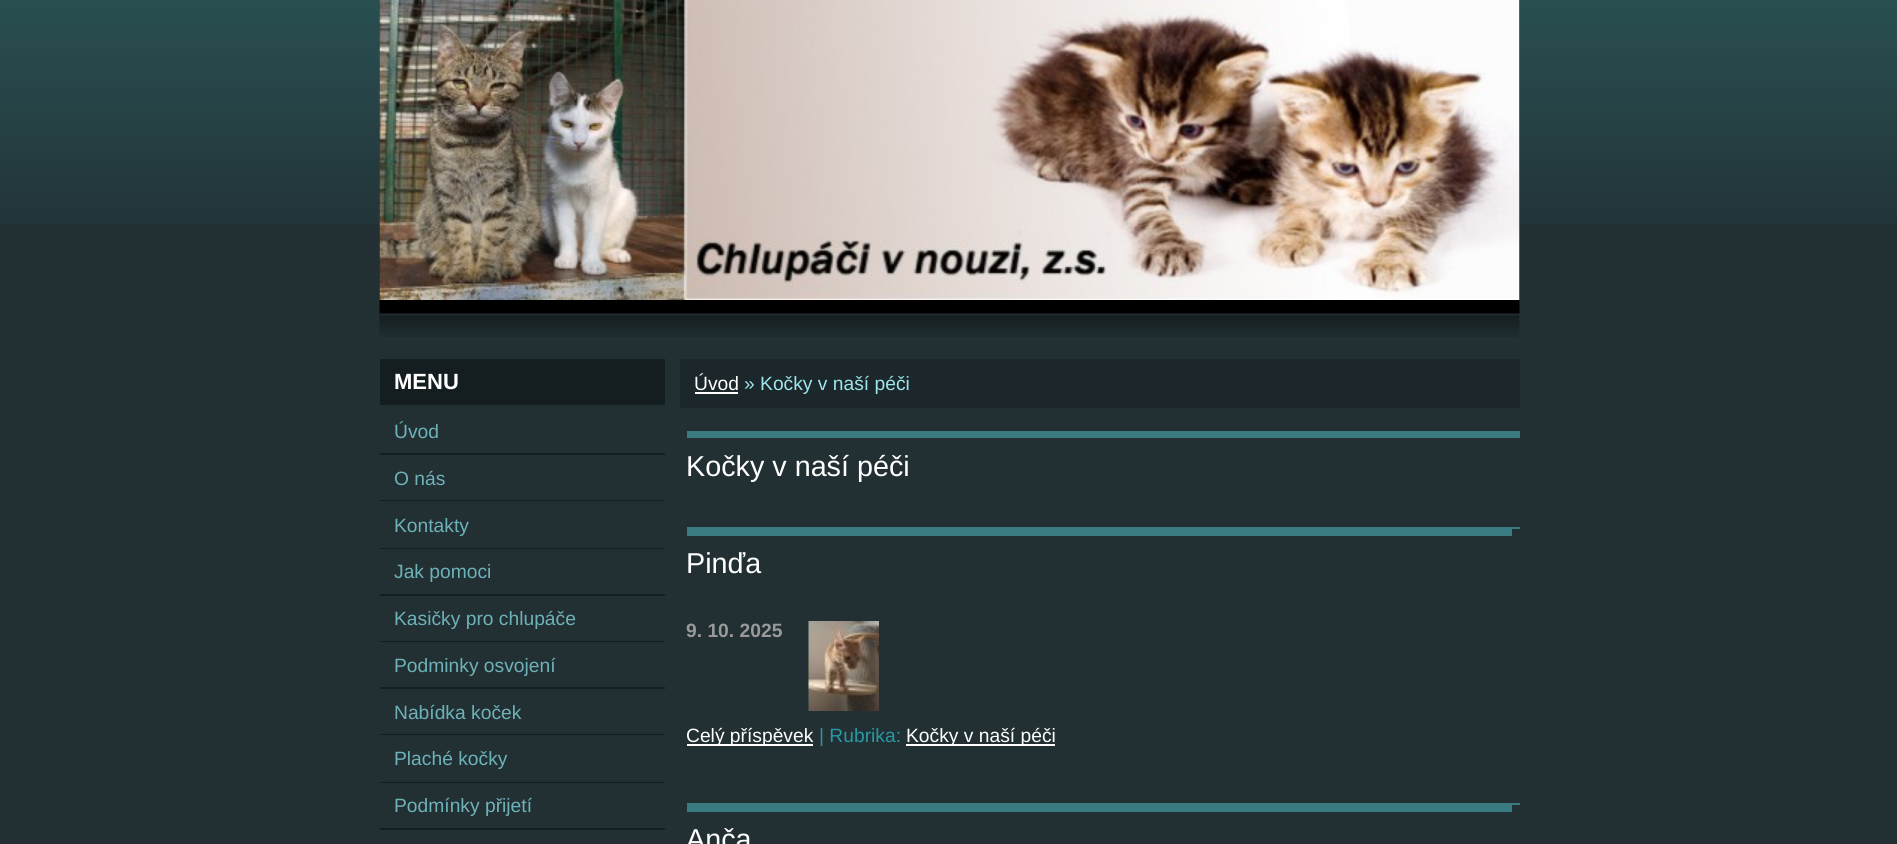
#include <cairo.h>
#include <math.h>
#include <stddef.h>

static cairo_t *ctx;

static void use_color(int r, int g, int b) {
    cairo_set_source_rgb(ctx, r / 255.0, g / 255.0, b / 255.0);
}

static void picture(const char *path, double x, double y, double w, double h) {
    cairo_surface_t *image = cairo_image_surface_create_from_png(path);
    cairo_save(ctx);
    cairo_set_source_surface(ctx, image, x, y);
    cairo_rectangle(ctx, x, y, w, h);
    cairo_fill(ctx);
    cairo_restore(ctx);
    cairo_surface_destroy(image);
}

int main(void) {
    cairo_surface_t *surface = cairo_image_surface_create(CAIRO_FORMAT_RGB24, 1897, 844);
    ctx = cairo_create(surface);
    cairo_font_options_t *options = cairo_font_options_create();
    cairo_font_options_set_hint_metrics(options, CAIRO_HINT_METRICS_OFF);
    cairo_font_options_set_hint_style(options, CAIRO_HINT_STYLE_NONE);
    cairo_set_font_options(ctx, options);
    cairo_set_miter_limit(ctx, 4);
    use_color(34, 48, 52);
    cairo_paint(ctx);
    picture("img1.png", 0, 0, 1897, 224);
    picture("img2.png", 379, 300, 1141, 37);
    use_color(34, 48, 52);
    cairo_rectangle(ctx, 1519, 0, 1, 224);
    cairo_fill(ctx);
    picture("img3.png", 379, 0, 1141, 300);
    use_color(20, 30, 33);
    cairo_rectangle(ctx, 380, 359, 285, 46);
    cairo_fill(ctx);
    cairo_select_font_face(ctx, "Liberation Sans", CAIRO_FONT_SLANT_NORMAL, CAIRO_FONT_WEIGHT_BOLD);
    cairo_set_font_size(ctx, 22);
    use_color(255, 255, 255);
    cairo_move_to(ctx, 394, 389);
    cairo_show_text(ctx, "MENU");
    use_color(20, 30, 33);
    cairo_rectangle(ctx, 380, 453, 285, 2);
    cairo_fill(ctx);
    cairo_select_font_face(ctx, "Liberation Sans", CAIRO_FONT_SLANT_NORMAL, CAIRO_FONT_WEIGHT_NORMAL);
    cairo_set_font_size(ctx, 19.25);
    use_color(109, 178, 184);
    cairo_move_to(ctx, 394, 438);
    cairo_show_text(ctx, "Úvod");
    use_color(20, 30, 33);
    cairo_rectangle(ctx, 380, 500, 285, 1);
    cairo_fill(ctx);
    use_color(109, 178, 184);
    cairo_move_to(ctx, 394, 485);
    cairo_show_text(ctx, "O nás");
    use_color(20, 30, 33);
    cairo_rectangle(ctx, 380, 548, 285, 1);
    cairo_fill(ctx);
    use_color(109, 178, 184);
    cairo_move_to(ctx, 394, 532);
    cairo_show_text(ctx, "Kontakty");
    use_color(20, 30, 33);
    cairo_rectangle(ctx, 380, 594, 285, 2);
    cairo_fill(ctx);
    use_color(109, 178, 184);
    cairo_move_to(ctx, 394, 578);
    cairo_show_text(ctx, "Jak pomoci");
    use_color(20, 30, 33);
    cairo_rectangle(ctx, 380, 641, 285, 1);
    cairo_fill(ctx);
    use_color(109, 178, 184);
    cairo_move_to(ctx, 394, 625);
    cairo_show_text(ctx, "Kasičky pro chlupáče");
    use_color(20, 30, 33);
    cairo_rectangle(ctx, 380, 687, 285, 2);
    cairo_fill(ctx);
    use_color(109, 178, 184);
    cairo_move_to(ctx, 394, 672);
    cairo_show_text(ctx, "Podminky osvojení");
    use_color(20, 30, 33);
    cairo_rectangle(ctx, 380, 734, 285, 1);
    cairo_fill(ctx);
    use_color(109, 178, 184);
    cairo_move_to(ctx, 394, 719);
    cairo_show_text(ctx, "Nabídka koček");
    use_color(20, 30, 33);
    cairo_rectangle(ctx, 380, 782, 285, 1);
    cairo_fill(ctx);
    use_color(109, 178, 184);
    cairo_move_to(ctx, 394, 765);
    cairo_show_text(ctx, "Plaché kočky");
    use_color(20, 30, 33);
    cairo_rectangle(ctx, 380, 828, 285, 2);
    cairo_fill(ctx);
    use_color(109, 178, 184);
    cairo_move_to(ctx, 394, 812);
    cairo_show_text(ctx, "Podmínky přijetí");
    use_color(27, 39, 42);
    cairo_rectangle(ctx, 680, 359, 840, 49);
    cairo_fill(ctx);
    use_color(255, 255, 255);
    cairo_move_to(ctx, 694, 390);
    cairo_show_text(ctx, "Úvod");
    cairo_rectangle(ctx, 695, 392, 43, 2);
    cairo_fill(ctx);
    use_color(158, 229, 235);
    cairo_move_to(ctx, 744, 390);
    cairo_show_text(ctx, "» Kočky v naší péči");
    use_color(57, 123, 129);
    cairo_rectangle(ctx, 687, 431, 833, 7);
    cairo_fill(ctx);
    cairo_set_font_size(ctx, 28.75);
    use_color(255, 255, 255);
    cairo_move_to(ctx, 686, 476);
    cairo_show_text(ctx, "Kočky v naší péči");
    use_color(57, 123, 129);
    cairo_rectangle(ctx, 687, 527, 833, 2);
    cairo_fill(ctx);
    cairo_rectangle(ctx, 687, 529, 825, 7);
    cairo_fill(ctx);
    use_color(255, 255, 255);
    cairo_move_to(ctx, 686, 573);
    cairo_show_text(ctx, "Pinďa");
    cairo_select_font_face(ctx, "Liberation Sans", CAIRO_FONT_SLANT_NORMAL, CAIRO_FONT_WEIGHT_BOLD);
    cairo_set_font_size(ctx, 19.25);
    use_color(153, 153, 153);
    cairo_move_to(ctx, 686, 637);
    cairo_show_text(ctx, "9. 10. 2025");
    picture("img4.png", 808, 621, 71, 90);
    use_color(255, 255, 255);
    cairo_rectangle(ctx, 687, 744, 126, 2);
    cairo_fill(ctx);
    cairo_select_font_face(ctx, "Liberation Sans", CAIRO_FONT_SLANT_NORMAL, CAIRO_FONT_WEIGHT_NORMAL);
    cairo_move_to(ctx, 686, 742);
    cairo_show_text(ctx, "Celý příspěvek");
    use_color(39, 152, 162);
    cairo_move_to(ctx, 819, 742);
    cairo_show_text(ctx, "| Rubrika:");
    use_color(255, 255, 255);
    cairo_rectangle(ctx, 906, 744, 149, 2);
    cairo_fill(ctx);
    cairo_move_to(ctx, 906, 742);
    cairo_show_text(ctx, "Kočky v naší péči");
    use_color(57, 123, 129);
    cairo_rectangle(ctx, 687, 803, 833, 2);
    cairo_fill(ctx);
    cairo_rectangle(ctx, 687, 805, 825, 7);
    cairo_fill(ctx);
    cairo_set_font_size(ctx, 28.75);
    use_color(255, 255, 255);
    cairo_move_to(ctx, 686, 849);
    cairo_show_text(ctx, "Anča");
    cairo_surface_write_to_png(surface, "result.png");
    cairo_font_options_destroy(options);
    cairo_destroy(ctx);
    cairo_surface_destroy(surface);
    return 0;
}
